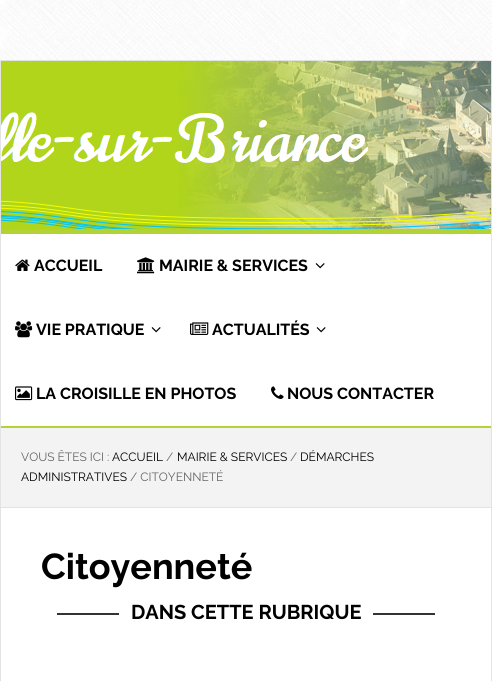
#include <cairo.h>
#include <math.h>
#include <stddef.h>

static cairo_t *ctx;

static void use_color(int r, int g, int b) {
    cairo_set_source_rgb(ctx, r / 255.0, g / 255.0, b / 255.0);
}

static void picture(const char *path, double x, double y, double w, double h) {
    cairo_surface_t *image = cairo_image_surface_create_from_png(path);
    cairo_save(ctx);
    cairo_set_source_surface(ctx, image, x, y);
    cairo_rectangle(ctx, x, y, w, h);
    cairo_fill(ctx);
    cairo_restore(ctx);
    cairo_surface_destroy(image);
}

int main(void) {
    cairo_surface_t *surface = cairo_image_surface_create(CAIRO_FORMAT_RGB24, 492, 681);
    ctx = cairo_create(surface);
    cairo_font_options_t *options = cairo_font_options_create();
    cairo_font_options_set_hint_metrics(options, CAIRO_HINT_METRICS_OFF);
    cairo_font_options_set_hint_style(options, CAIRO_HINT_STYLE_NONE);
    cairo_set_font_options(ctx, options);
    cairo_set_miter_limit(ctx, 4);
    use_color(255, 255, 255);
    cairo_paint(ctx);
    picture("img1.png", 0, 0, 492, 60);
    cairo_rectangle(ctx, 0.5, 60.5, 491, 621);
    use_color(227, 227, 227);
    cairo_set_line_width(ctx, 1);
    cairo_stroke(ctx);
    use_color(179, 210, 53);
    cairo_rectangle(ctx, 1, 229, 490, 5);
    cairo_fill(ctx);
    picture("img2.png", 1, 61, 490, 168);
    cairo_rectangle(ctx, 1, 426, 490, 2);
    cairo_fill(ctx);
    picture("img3.png", 15, 259, 15, 12);
    cairo_select_font_face(ctx, "Raleway", CAIRO_FONT_SLANT_NORMAL, CAIRO_FONT_WEIGHT_BOLD);
    cairo_set_font_size(ctx, 16);
    use_color(0, 0, 0);
    cairo_move_to(ctx, 34, 271);
    cairo_show_text(ctx, "ACCUEIL");
    picture("img4.png", 137, 257, 18, 17);
    cairo_move_to(ctx, 159, 271);
    cairo_show_text(ctx, "MAIRIE & SERVICES");
    picture("img5.png", 315, 263, 10, 6);
    picture("img6.png", 15, 321, 18, 17);
    cairo_move_to(ctx, 36, 335);
    cairo_show_text(ctx, "VIE PRATIQUE");
    picture("img5.png", 151, 327, 10, 6);
    picture("img7.png", 190, 322, 19, 13);
    cairo_move_to(ctx, 212, 335);
    cairo_show_text(ctx, "ACTUALITÉS");
    picture("img5.png", 316, 327, 10, 6);
    picture("img8.png", 15, 386, 18, 15);
    cairo_move_to(ctx, 36, 399);
    cairo_show_text(ctx, "LA CROISILLE EN PHOTOS");
    picture("img9.png", 271, 386, 13, 13);
    cairo_move_to(ctx, 287, 399);
    cairo_show_text(ctx, "NOUS CONTACTER");
    use_color(243, 243, 243);
    cairo_rectangle(ctx, 1, 428, 490, 79);
    cairo_fill(ctx);
    use_color(227, 227, 227);
    cairo_rectangle(ctx, 1, 507, 490, 1);
    cairo_fill(ctx);
    cairo_select_font_face(ctx, "Raleway", CAIRO_FONT_SLANT_NORMAL, CAIRO_FONT_WEIGHT_NORMAL);
    cairo_set_font_size(ctx, 12);
    use_color(102, 102, 102);
    cairo_move_to(ctx, 21, 461);
    cairo_show_text(ctx, "VOUS ÊTES ICI :");
    use_color(0, 0, 0);
    cairo_move_to(ctx, 112, 461);
    cairo_show_text(ctx, "ACCUEIL");
    use_color(102, 102, 102);
    cairo_move_to(ctx, 166, 461);
    cairo_show_text(ctx, "/");
    use_color(0, 0, 0);
    cairo_move_to(ctx, 177, 461);
    cairo_show_text(ctx, "MAIRIE & SERVICES");
    use_color(102, 102, 102);
    cairo_move_to(ctx, 290, 461);
    cairo_show_text(ctx, "/");
    use_color(0, 0, 0);
    cairo_move_to(ctx, 300, 461);
    cairo_show_text(ctx, "DÉMARCHES");
    cairo_move_to(ctx, 21, 481);
    cairo_show_text(ctx, "ADMINISTRATIVES");
    use_color(102, 102, 102);
    cairo_move_to(ctx, 130, 481);
    cairo_show_text(ctx, "/ CITOYENNETÉ");
    cairo_select_font_face(ctx, "Raleway", CAIRO_FONT_SLANT_NORMAL, CAIRO_FONT_WEIGHT_BOLD);
    cairo_set_font_size(ctx, 36);
    use_color(0, 0, 0);
    cairo_move_to(ctx, 41, 579);
    cairo_show_text(ctx, "Citoyenneté");
    use_color(51, 51, 51);
    cairo_rectangle(ctx, 57, 613, 62, 2);
    cairo_fill(ctx);
    cairo_set_font_size(ctx, 20);
    use_color(0, 0, 0);
    cairo_move_to(ctx, 131, 619);
    cairo_show_text(ctx, "DANS CETTE RUBRIQUE");
    use_color(51, 51, 51);
    cairo_rectangle(ctx, 373, 613, 62, 2);
    cairo_fill(ctx);
    cairo_surface_write_to_png(surface, "result.png");
    cairo_font_options_destroy(options);
    cairo_destroy(ctx);
    cairo_surface_destroy(surface);
    return 0;
}
